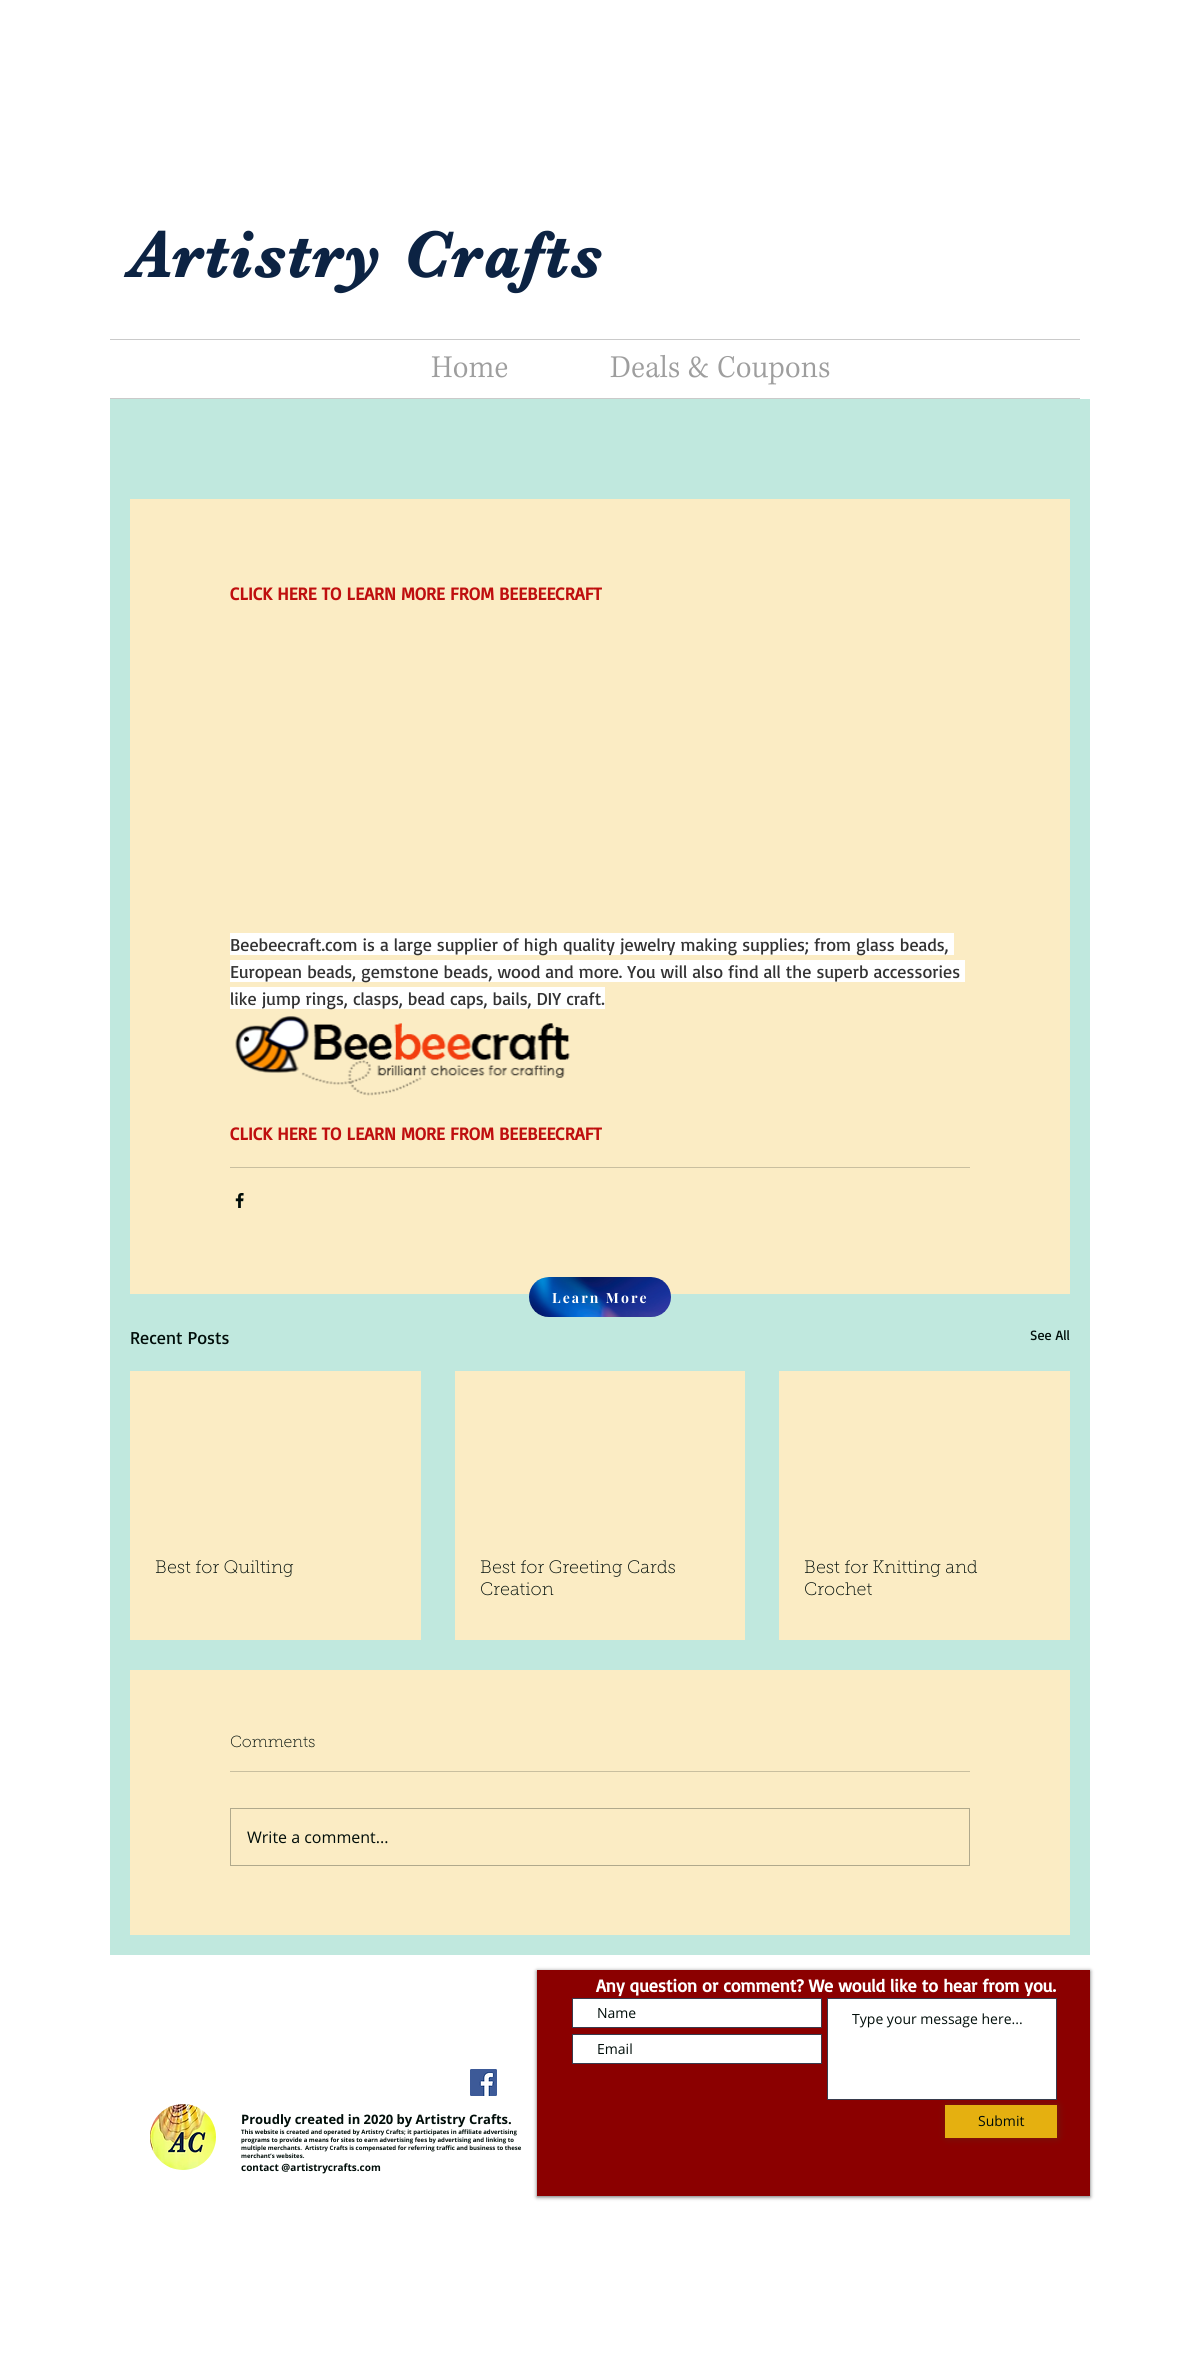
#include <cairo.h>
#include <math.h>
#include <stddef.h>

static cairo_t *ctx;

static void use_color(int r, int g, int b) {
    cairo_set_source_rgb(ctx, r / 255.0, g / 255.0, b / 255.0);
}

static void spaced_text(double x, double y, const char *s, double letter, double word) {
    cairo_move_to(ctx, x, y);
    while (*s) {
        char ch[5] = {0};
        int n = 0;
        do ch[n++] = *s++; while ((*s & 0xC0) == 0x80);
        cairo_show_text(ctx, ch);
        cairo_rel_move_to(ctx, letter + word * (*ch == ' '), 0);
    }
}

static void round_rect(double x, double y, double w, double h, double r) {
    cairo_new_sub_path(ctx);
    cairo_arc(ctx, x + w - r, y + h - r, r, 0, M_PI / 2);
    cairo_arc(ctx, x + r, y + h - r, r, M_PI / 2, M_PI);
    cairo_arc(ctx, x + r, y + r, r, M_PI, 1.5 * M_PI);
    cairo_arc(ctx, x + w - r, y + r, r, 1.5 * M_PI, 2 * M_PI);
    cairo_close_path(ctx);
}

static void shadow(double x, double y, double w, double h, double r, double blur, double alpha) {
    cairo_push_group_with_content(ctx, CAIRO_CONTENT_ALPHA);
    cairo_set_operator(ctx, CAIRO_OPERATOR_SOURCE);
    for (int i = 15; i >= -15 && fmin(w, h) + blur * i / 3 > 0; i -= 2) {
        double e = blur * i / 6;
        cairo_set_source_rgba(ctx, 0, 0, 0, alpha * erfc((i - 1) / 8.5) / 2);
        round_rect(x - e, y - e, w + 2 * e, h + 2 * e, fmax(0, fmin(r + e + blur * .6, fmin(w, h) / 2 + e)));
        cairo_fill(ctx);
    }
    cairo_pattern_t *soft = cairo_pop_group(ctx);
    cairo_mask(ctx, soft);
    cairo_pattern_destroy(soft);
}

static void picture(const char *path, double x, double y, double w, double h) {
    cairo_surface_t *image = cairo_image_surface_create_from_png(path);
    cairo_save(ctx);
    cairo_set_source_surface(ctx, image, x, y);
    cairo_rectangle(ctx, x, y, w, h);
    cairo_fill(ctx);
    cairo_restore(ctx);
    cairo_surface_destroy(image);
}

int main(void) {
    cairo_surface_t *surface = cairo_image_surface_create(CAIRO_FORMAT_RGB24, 1200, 2372);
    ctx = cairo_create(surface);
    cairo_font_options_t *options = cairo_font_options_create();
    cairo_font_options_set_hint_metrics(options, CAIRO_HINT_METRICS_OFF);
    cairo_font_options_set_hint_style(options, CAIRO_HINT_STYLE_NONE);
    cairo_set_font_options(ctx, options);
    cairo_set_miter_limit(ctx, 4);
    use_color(255, 255, 255);
    cairo_paint(ctx);
    cairo_select_font_face(ctx, "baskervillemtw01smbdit", CAIRO_FONT_SLANT_NORMAL, CAIRO_FONT_WEIGHT_BOLD);
    cairo_set_font_size(ctx, 66);
    use_color(12, 35, 67);
    spaced_text(129, 277, "Artistry Crafts", 3.25, 0);
    use_color(202, 202, 202);
    cairo_rectangle(ctx, 110, 339, 970, 1);
    cairo_fill(ctx);
    cairo_rectangle(ctx, 110, 398, 970, 1);
    cairo_fill(ctx);
    picture("img1.png", 431, 356, 77, 22);
    picture("img2.png", 610, 354, 220, 31);
    use_color(192, 232, 222);
    cairo_rectangle(ctx, 110, 399, 980, 1556);
    cairo_fill(ctx);
    use_color(251, 236, 196);
    cairo_rectangle(ctx, 130, 499, 940, 795);
    cairo_fill(ctx);
    cairo_select_font_face(ctx, "Basic", CAIRO_FONT_SLANT_NORMAL, CAIRO_FONT_WEIGHT_BOLD);
    cairo_set_font_size(ctx, 18);
    use_color(191, 15, 15);
    cairo_move_to(ctx, 230, 600);
    cairo_show_text(ctx, "CLICK HERE TO LEARN MORE FROM BEEBEECRAFT");
    use_color(255, 255, 255);
    cairo_rectangle(ctx, 230, 933, 724, 22);
    cairo_fill(ctx);
    cairo_select_font_face(ctx, "Basic", CAIRO_FONT_SLANT_NORMAL, CAIRO_FONT_WEIGHT_NORMAL);
    use_color(51, 51, 51);
    cairo_move_to(ctx, 230, 951);
    cairo_show_text(ctx, "Beebeecraft.com is a large supplier of high quality jewelry making supplies; from glass beads,");
    use_color(255, 255, 255);
    cairo_rectangle(ctx, 230, 960, 735, 22);
    cairo_fill(ctx);
    use_color(51, 51, 51);
    cairo_move_to(ctx, 230, 978);
    cairo_show_text(ctx, "European beads, gemstone beads, wood and more. You will also find all the superb accessories");
    use_color(255, 255, 255);
    cairo_rectangle(ctx, 230, 987, 375, 22);
    cairo_fill(ctx);
    use_color(51, 51, 51);
    cairo_move_to(ctx, 230, 1005);
    cairo_show_text(ctx, "like jump rings, clasps, bead caps, bails, DIY craft.");
    picture("img3.png", 235, 1016, 335, 80);
    cairo_select_font_face(ctx, "Basic", CAIRO_FONT_SLANT_NORMAL, CAIRO_FONT_WEIGHT_BOLD);
    use_color(191, 15, 15);
    cairo_move_to(ctx, 230, 1140);
    cairo_show_text(ctx, "CLICK HERE TO LEARN MORE FROM BEEBEECRAFT");
    use_color(201, 191, 159);
    cairo_rectangle(ctx, 230, 1167, 740, 1);
    cairo_fill(ctx);
    picture("img4.png", 235, 1193, 9, 15);
    cairo_select_font_face(ctx, "Basic", CAIRO_FONT_SLANT_NORMAL, CAIRO_FONT_WEIGHT_NORMAL);
    use_color(0, 13, 9);
    cairo_move_to(ctx, 130, 1344);
    cairo_show_text(ctx, "Recent Posts");
    cairo_set_font_size(ctx, 14);
    cairo_move_to(ctx, 1030, 1340);
    cairo_show_text(ctx, "See All");
    use_color(251, 236, 196);
    cairo_rectangle(ctx, 130, 1371, 291, 269);
    cairo_fill(ctx);
    cairo_select_font_face(ctx, "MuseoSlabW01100 Thin", CAIRO_FONT_SLANT_NORMAL, CAIRO_FONT_WEIGHT_NORMAL);
    cairo_set_font_size(ctx, 18);
    use_color(0, 13, 9);
    cairo_move_to(ctx, 155, 1573);
    cairo_show_text(ctx, "Best for Quilting");
    use_color(251, 236, 196);
    cairo_rectangle(ctx, 455, 1371, 290, 269);
    cairo_fill(ctx);
    use_color(0, 13, 9);
    cairo_move_to(ctx, 480, 1573);
    cairo_show_text(ctx, "Best for Greeting Cards");
    cairo_move_to(ctx, 480, 1595);
    cairo_show_text(ctx, "Creation");
    use_color(251, 236, 196);
    cairo_rectangle(ctx, 779, 1371, 291, 269);
    cairo_fill(ctx);
    use_color(0, 13, 9);
    cairo_move_to(ctx, 804, 1573);
    cairo_show_text(ctx, "Best for Knitting and");
    cairo_move_to(ctx, 804, 1595);
    cairo_show_text(ctx, "Crochet");
    use_color(251, 236, 196);
    cairo_rectangle(ctx, 130, 1670, 940, 265);
    cairo_fill(ctx);
    cairo_set_font_size(ctx, 16);
    use_color(0, 13, 9);
    cairo_move_to(ctx, 230, 1747);
    cairo_show_text(ctx, "Comments");
    use_color(201, 191, 159);
    cairo_rectangle(ctx, 230, 1771, 740, 1);
    cairo_fill(ctx);
    cairo_rectangle(ctx, 230.5, 1808.5, 739, 57);
    use_color(176, 169, 140);
    cairo_set_line_width(ctx, 1);
    cairo_stroke(ctx);
    cairo_select_font_face(ctx, "Open Sans", CAIRO_FONT_SLANT_NORMAL, CAIRO_FONT_WEIGHT_NORMAL);
    use_color(0, 13, 9);
    cairo_move_to(ctx, 247, 1843);
    cairo_show_text(ctx, "Write a comment...");
    picture("img5.png", 529, 1277, 142, 40);
    cairo_select_font_face(ctx, "Playfair Display", CAIRO_FONT_SLANT_NORMAL, CAIRO_FONT_WEIGHT_BOLD);
    cairo_set_font_size(ctx, 14);
    use_color(255, 255, 255);
    spaced_text(552, 1303, "Learn More", 2.1, 0);
    picture("img6.png", 470, 2069, 27, 27);
    use_color(0, 0, 0);
    shadow(537, 1971, 553, 226, 0, 2, 0.6);
    use_color(139, 0, 0);
    cairo_rectangle(ctx, 537, 1970, 553, 226);
    cairo_fill(ctx);
    cairo_select_font_face(ctx, "Basic", CAIRO_FONT_SLANT_NORMAL, CAIRO_FONT_WEIGHT_BOLD);
    cairo_set_font_size(ctx, 18);
    use_color(255, 255, 255);
    cairo_move_to(ctx, 596, 1992);
    cairo_show_text(ctx, "Any question or comment? We would like to hear from you.");
    cairo_rectangle(ctx, 572.5, 1998.5, 249, 29);
    cairo_fill_preserve(ctx);
    use_color(55, 59, 77);
    cairo_stroke(ctx);
    cairo_select_font_face(ctx, "Open Sans", CAIRO_FONT_SLANT_NORMAL, CAIRO_FONT_WEIGHT_NORMAL);
    cairo_set_font_size(ctx, 14);
    use_color(0, 13, 9);
    cairo_move_to(ctx, 597, 2018);
    cairo_show_text(ctx, "Name");
    use_color(255, 255, 255);
    cairo_rectangle(ctx, 827.5, 1998.5, 229, 101);
    cairo_fill_preserve(ctx);
    use_color(55, 59, 77);
    cairo_stroke(ctx);
    use_color(0, 13, 9);
    cairo_move_to(ctx, 852, 2024);
    cairo_show_text(ctx, "Type your message here...");
    use_color(255, 255, 255);
    cairo_rectangle(ctx, 572.5, 2034.5, 249, 29);
    cairo_fill_preserve(ctx);
    use_color(55, 59, 77);
    cairo_stroke(ctx);
    use_color(0, 13, 9);
    cairo_move_to(ctx, 597, 2054);
    cairo_show_text(ctx, "Email");
    use_color(9, 136, 72);
    shadow(947, 2106, 110, 31, 0, 4, 0.3);
    use_color(229, 176, 16);
    cairo_rectangle(ctx, 945, 2105, 112, 33);
    cairo_fill(ctx);
    use_color(0, 13, 9);
    cairo_move_to(ctx, 978, 2126);
    cairo_show_text(ctx, "Submit");
    picture("img7.png", 150, 2104, 66, 66);
    cairo_select_font_face(ctx, "Open Sans", CAIRO_FONT_SLANT_NORMAL, CAIRO_FONT_WEIGHT_BOLD);
    cairo_set_font_size(ctx, 13);
    cairo_move_to(ctx, 241, 2124);
    cairo_show_text(ctx, "Proudly created in 2020 by Artistry Crafts.");
    cairo_set_font_size(ctx, 6);
    cairo_move_to(ctx, 241, 2134);
    cairo_show_text(ctx, "This website is created and operated by Artistry Crafts; it participates in affiliate advertising");
    cairo_move_to(ctx, 241, 2142);
    cairo_show_text(ctx, "programs to provide a means for sites to earn advertising fees by advertising and linking to");
    cairo_move_to(ctx, 241, 2150);
    cairo_show_text(ctx, "multiple merchants.  Artistry Crafts is compensated for referring traffic and business to these");
    cairo_move_to(ctx, 241, 2158);
    cairo_show_text(ctx, "merchant’s websites.");
    cairo_set_font_size(ctx, 10);
    cairo_move_to(ctx, 241, 2171);
    cairo_show_text(ctx, "contact @artistrycrafts.com");
    cairo_surface_write_to_png(surface, "result.png");
    cairo_font_options_destroy(options);
    cairo_destroy(ctx);
    cairo_surface_destroy(surface);
    return 0;
}
